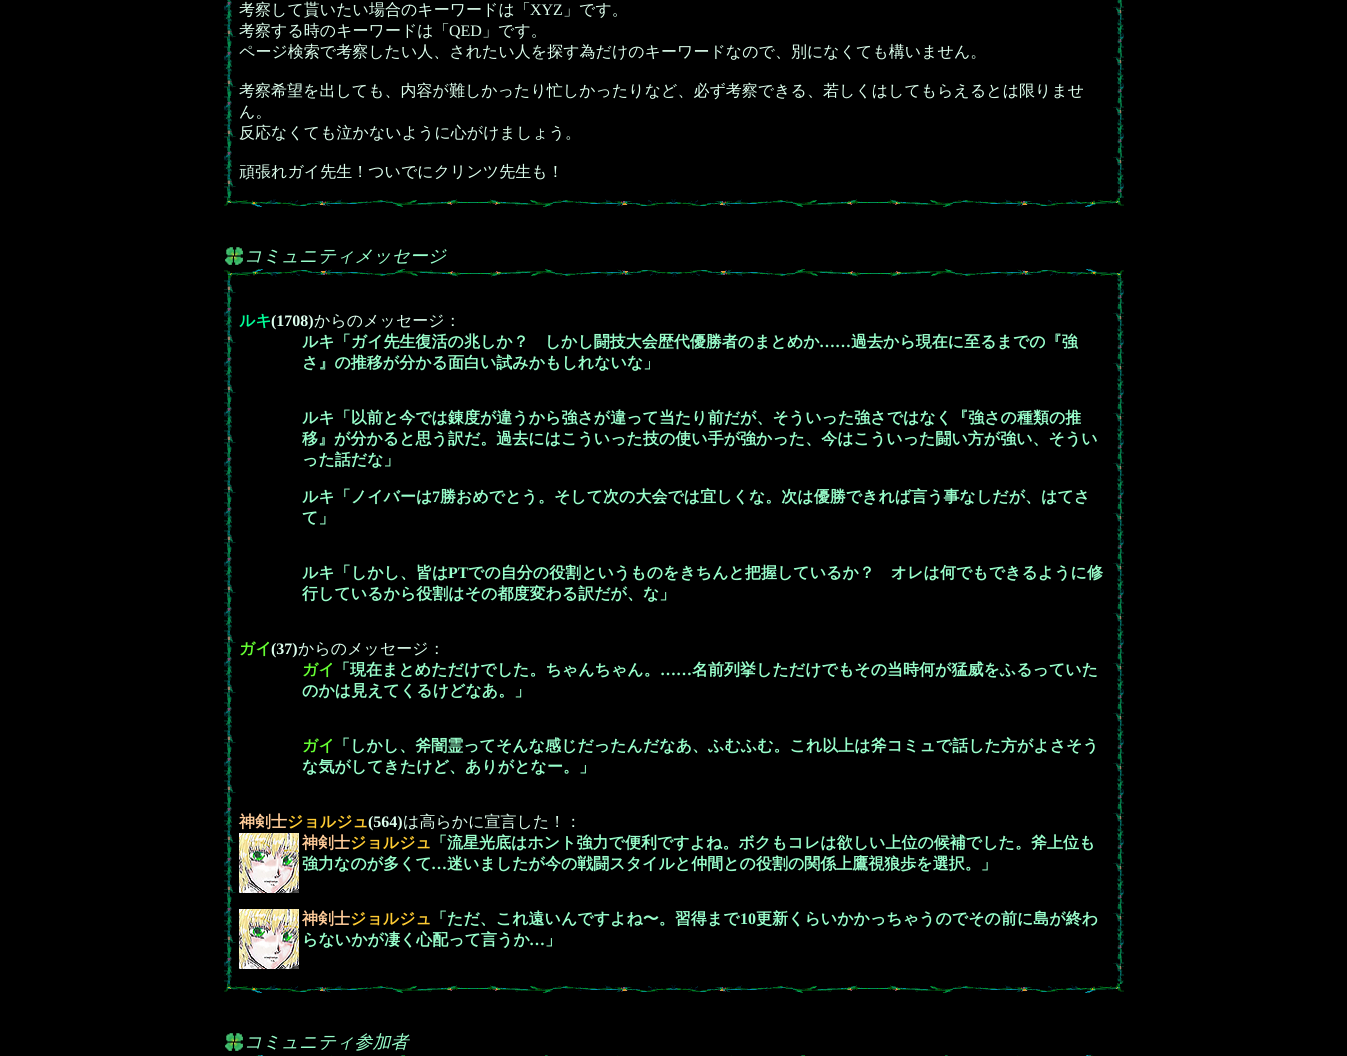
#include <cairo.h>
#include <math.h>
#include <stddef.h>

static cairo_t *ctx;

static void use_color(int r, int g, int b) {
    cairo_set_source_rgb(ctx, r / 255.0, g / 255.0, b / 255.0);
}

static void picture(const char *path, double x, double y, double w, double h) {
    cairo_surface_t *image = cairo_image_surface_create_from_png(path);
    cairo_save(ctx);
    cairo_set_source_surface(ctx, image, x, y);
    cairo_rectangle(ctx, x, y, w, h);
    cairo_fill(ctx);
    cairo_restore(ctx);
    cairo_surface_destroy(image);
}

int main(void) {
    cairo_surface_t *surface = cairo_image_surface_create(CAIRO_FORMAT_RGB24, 1347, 1056);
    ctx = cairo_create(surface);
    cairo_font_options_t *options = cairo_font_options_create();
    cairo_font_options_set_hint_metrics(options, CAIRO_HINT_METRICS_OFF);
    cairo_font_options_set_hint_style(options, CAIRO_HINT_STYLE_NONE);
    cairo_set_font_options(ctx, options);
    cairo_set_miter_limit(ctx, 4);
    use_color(0, 0, 0);
    cairo_paint(ctx);
    picture("img1.png", 224, 0, 900, 198);
    cairo_select_font_face(ctx, "WenQuanYi Zen Hei Medium", CAIRO_FONT_SLANT_NORMAL, CAIRO_FONT_WEIGHT_NORMAL);
    cairo_set_font_size(ctx, 16);
    use_color(221, 255, 238);
    cairo_move_to(ctx, 239, 15);
    cairo_show_text(ctx, "考察して貰いたい場合のキーワードは「");
    cairo_select_font_face(ctx, "Liberation Serif", CAIRO_FONT_SLANT_NORMAL, CAIRO_FONT_WEIGHT_NORMAL);
    cairo_move_to(ctx, 530, 15);
    cairo_show_text(ctx, "XYZ");
    cairo_select_font_face(ctx, "WenQuanYi Zen Hei Medium", CAIRO_FONT_SLANT_NORMAL, CAIRO_FONT_WEIGHT_NORMAL);
    cairo_move_to(ctx, 563, 15);
    cairo_show_text(ctx, "」です。");
    cairo_move_to(ctx, 239, 36);
    cairo_show_text(ctx, "考察する時のキーワードは「");
    cairo_select_font_face(ctx, "Liberation Serif", CAIRO_FONT_SLANT_NORMAL, CAIRO_FONT_WEIGHT_NORMAL);
    cairo_move_to(ctx, 449, 36);
    cairo_show_text(ctx, "QED");
    cairo_select_font_face(ctx, "WenQuanYi Zen Hei Medium", CAIRO_FONT_SLANT_NORMAL, CAIRO_FONT_WEIGHT_NORMAL);
    cairo_move_to(ctx, 482, 36);
    cairo_show_text(ctx, "」です。");
    cairo_move_to(ctx, 239, 57);
    cairo_show_text(ctx, "ページ検索で考察したい人、されたい人を探す為だけのキーワードなので、別になくても構いません。");
    cairo_move_to(ctx, 239, 96);
    cairo_show_text(ctx, "考察希望を出しても、内容が難しかったり忙しかったりなど、必ず考察できる、若しくはしてもらえるとは限りませ");
    cairo_move_to(ctx, 239, 117);
    cairo_show_text(ctx, "ん。");
    cairo_move_to(ctx, 239, 138);
    cairo_show_text(ctx, "反応なくても泣かないように心がけましょう。");
    cairo_move_to(ctx, 239, 177);
    cairo_show_text(ctx, "頑張れガイ先生！ついでにクリンツ先生も！");
    picture("img2.png", 224, 198, 900, 9);
    picture("img3.png", 225, 247, 18, 18);
    cairo_select_font_face(ctx, "WenQuanYi Zen Hei Medium", CAIRO_FONT_SLANT_ITALIC, CAIRO_FONT_WEIGHT_NORMAL);
    cairo_set_font_size(ctx, 18);
    use_color(153, 255, 204);
    cairo_move_to(ctx, 244, 262);
    cairo_show_text(ctx, "コミュニティメッセージ");
    picture("img4.png", 224, 268, 900, 10);
    picture("img5.png", 224, 278, 900, 706);
    cairo_select_font_face(ctx, "WenQuanYi Zen Hei", CAIRO_FONT_SLANT_NORMAL, CAIRO_FONT_WEIGHT_BOLD);
    cairo_set_font_size(ctx, 16);
    use_color(0, 255, 153);
    cairo_move_to(ctx, 239, 326);
    cairo_show_text(ctx, "ルキ");
    cairo_select_font_face(ctx, "Liberation Serif", CAIRO_FONT_SLANT_NORMAL, CAIRO_FONT_WEIGHT_BOLD);
    use_color(221, 255, 238);
    cairo_move_to(ctx, 271, 326);
    cairo_show_text(ctx, "(1708)");
    cairo_select_font_face(ctx, "WenQuanYi Zen Hei Medium", CAIRO_FONT_SLANT_NORMAL, CAIRO_FONT_WEIGHT_NORMAL);
    cairo_move_to(ctx, 314, 326);
    cairo_show_text(ctx, "からのメッセージ：");
    cairo_select_font_face(ctx, "WenQuanYi Zen Hei", CAIRO_FONT_SLANT_NORMAL, CAIRO_FONT_WEIGHT_BOLD);
    use_color(153, 255, 204);
    cairo_move_to(ctx, 302, 347);
    cairo_show_text(ctx, "ルキ「ガイ先生復活の兆しか？　しかし闘技大会歴代優勝者のまとめか");
    cairo_select_font_face(ctx, "Liberation Serif", CAIRO_FONT_SLANT_NORMAL, CAIRO_FONT_WEIGHT_BOLD);
    cairo_move_to(ctx, 819, 347);
    cairo_show_text(ctx, "……");
    cairo_select_font_face(ctx, "WenQuanYi Zen Hei", CAIRO_FONT_SLANT_NORMAL, CAIRO_FONT_WEIGHT_BOLD);
    cairo_move_to(ctx, 851, 347);
    cairo_show_text(ctx, "過去から現在に至るまでの『強");
    cairo_move_to(ctx, 302, 368);
    cairo_show_text(ctx, "さ』の推移が分かる面白い試みかもしれないな」");
    cairo_move_to(ctx, 302, 423);
    cairo_show_text(ctx, "ルキ「以前と今では錬度が違うから強さが違って当たり前だが、そういった強さではなく『強さの種類の推");
    cairo_move_to(ctx, 302, 444);
    cairo_show_text(ctx, "移』が分かると思う訳だ。過去にはこういった技の使い手が強かった、今はこういった闘い方が強い、そうい");
    cairo_move_to(ctx, 302, 465);
    cairo_show_text(ctx, "った話だな」");
    cairo_move_to(ctx, 302, 502);
    cairo_show_text(ctx, "ルキ「ノイバーは");
    cairo_select_font_face(ctx, "Liberation Serif", CAIRO_FONT_SLANT_NORMAL, CAIRO_FONT_WEIGHT_BOLD);
    cairo_move_to(ctx, 432, 502);
    cairo_show_text(ctx, "7");
    cairo_select_font_face(ctx, "WenQuanYi Zen Hei", CAIRO_FONT_SLANT_NORMAL, CAIRO_FONT_WEIGHT_BOLD);
    cairo_move_to(ctx, 440, 502);
    cairo_show_text(ctx, "勝おめでとう。そして次の大会では宜しくな。次は優勝できれば言う事なしだが、はてさ");
    cairo_move_to(ctx, 302, 523);
    cairo_show_text(ctx, "て」");
    cairo_move_to(ctx, 302, 578);
    cairo_show_text(ctx, "ルキ「しかし、皆は");
    cairo_select_font_face(ctx, "Liberation Serif", CAIRO_FONT_SLANT_NORMAL, CAIRO_FONT_WEIGHT_BOLD);
    cairo_move_to(ctx, 448, 578);
    cairo_show_text(ctx, "PT");
    cairo_select_font_face(ctx, "WenQuanYi Zen Hei", CAIRO_FONT_SLANT_NORMAL, CAIRO_FONT_WEIGHT_BOLD);
    cairo_move_to(ctx, 468, 578);
    cairo_show_text(ctx, "での自分の役割というものをきちんと把握しているか？　オレは何でもできるように修");
    cairo_move_to(ctx, 302, 599);
    cairo_show_text(ctx, "行しているから役割はその都度変わる訳だが、な」");
    use_color(102, 255, 51);
    cairo_move_to(ctx, 239, 654);
    cairo_show_text(ctx, "ガイ");
    cairo_select_font_face(ctx, "Liberation Serif", CAIRO_FONT_SLANT_NORMAL, CAIRO_FONT_WEIGHT_BOLD);
    use_color(221, 255, 238);
    cairo_move_to(ctx, 271, 654);
    cairo_show_text(ctx, "(37)");
    cairo_select_font_face(ctx, "WenQuanYi Zen Hei Medium", CAIRO_FONT_SLANT_NORMAL, CAIRO_FONT_WEIGHT_NORMAL);
    cairo_move_to(ctx, 298, 654);
    cairo_show_text(ctx, "からのメッセージ：");
    cairo_select_font_face(ctx, "WenQuanYi Zen Hei", CAIRO_FONT_SLANT_NORMAL, CAIRO_FONT_WEIGHT_BOLD);
    use_color(102, 255, 51);
    cairo_move_to(ctx, 302, 675);
    cairo_show_text(ctx, "ガイ");
    use_color(153, 255, 204);
    cairo_move_to(ctx, 334, 675);
    cairo_show_text(ctx, "「現在まとめただけでした。ちゃんちゃん。");
    cairo_select_font_face(ctx, "Liberation Serif", CAIRO_FONT_SLANT_NORMAL, CAIRO_FONT_WEIGHT_BOLD);
    cairo_move_to(ctx, 660, 675);
    cairo_show_text(ctx, "……");
    cairo_select_font_face(ctx, "WenQuanYi Zen Hei", CAIRO_FONT_SLANT_NORMAL, CAIRO_FONT_WEIGHT_BOLD);
    cairo_move_to(ctx, 692, 675);
    cairo_show_text(ctx, "名前列挙しただけでもその当時何が猛威をふるっていた");
    cairo_move_to(ctx, 302, 696);
    cairo_show_text(ctx, "のかは見えてくるけどなあ。」");
    use_color(102, 255, 51);
    cairo_move_to(ctx, 302, 751);
    cairo_show_text(ctx, "ガイ");
    use_color(153, 255, 204);
    cairo_move_to(ctx, 334, 751);
    cairo_show_text(ctx, "「しかし、斧闇霊ってそんな感じだったんだなあ、ふむふむ。これ以上は斧コミュで話した方がよさそう");
    cairo_move_to(ctx, 302, 772);
    cairo_show_text(ctx, "な気がしてきたけど、ありがとなー。」");
    use_color(255, 204, 153);
    cairo_move_to(ctx, 239, 827);
    cairo_show_text(ctx, "神剣士");
    use_color(255, 204, 51);
    cairo_move_to(ctx, 287, 827);
    cairo_show_text(ctx, "ジョルジュ");
    cairo_select_font_face(ctx, "Liberation Serif", CAIRO_FONT_SLANT_NORMAL, CAIRO_FONT_WEIGHT_BOLD);
    use_color(221, 255, 238);
    cairo_move_to(ctx, 368, 827);
    cairo_show_text(ctx, "(564)");
    cairo_select_font_face(ctx, "WenQuanYi Zen Hei Medium", CAIRO_FONT_SLANT_NORMAL, CAIRO_FONT_WEIGHT_NORMAL);
    cairo_move_to(ctx, 403, 827);
    cairo_show_text(ctx, "は高らかに宣言した！：");
    picture("img6.png", 239, 833, 60, 60);
    cairo_select_font_face(ctx, "WenQuanYi Zen Hei", CAIRO_FONT_SLANT_NORMAL, CAIRO_FONT_WEIGHT_BOLD);
    use_color(255, 204, 153);
    cairo_move_to(ctx, 302, 848);
    cairo_show_text(ctx, "神剣士");
    use_color(255, 204, 51);
    cairo_move_to(ctx, 350, 848);
    cairo_show_text(ctx, "ジョルジュ");
    use_color(153, 255, 204);
    cairo_move_to(ctx, 431, 848);
    cairo_show_text(ctx, "「流星光底はホント強力で便利ですよね。ボクもコレは欲しい上位の候補でした。斧上位も");
    cairo_move_to(ctx, 302, 869);
    cairo_show_text(ctx, "強力なのが多くて");
    cairo_select_font_face(ctx, "Liberation Serif", CAIRO_FONT_SLANT_NORMAL, CAIRO_FONT_WEIGHT_BOLD);
    cairo_move_to(ctx, 431, 869);
    cairo_show_text(ctx, "…");
    cairo_select_font_face(ctx, "WenQuanYi Zen Hei", CAIRO_FONT_SLANT_NORMAL, CAIRO_FONT_WEIGHT_BOLD);
    cairo_move_to(ctx, 447, 869);
    cairo_show_text(ctx, "迷いましたが今の戦闘スタイルと仲間との役割の関係上鷹視狼歩を選択。」");
    picture("img6.png", 239, 909, 60, 60);
    use_color(255, 204, 153);
    cairo_move_to(ctx, 302, 924);
    cairo_show_text(ctx, "神剣士");
    use_color(255, 204, 51);
    cairo_move_to(ctx, 350, 924);
    cairo_show_text(ctx, "ジョルジュ");
    use_color(153, 255, 204);
    cairo_move_to(ctx, 431, 924);
    cairo_show_text(ctx, "「ただ、これ遠いんですよね〜。習得まで");
    cairo_select_font_face(ctx, "Liberation Serif", CAIRO_FONT_SLANT_NORMAL, CAIRO_FONT_WEIGHT_BOLD);
    cairo_move_to(ctx, 740, 924);
    cairo_show_text(ctx, "10");
    cairo_select_font_face(ctx, "WenQuanYi Zen Hei", CAIRO_FONT_SLANT_NORMAL, CAIRO_FONT_WEIGHT_BOLD);
    cairo_move_to(ctx, 756, 924);
    cairo_show_text(ctx, "更新くらいかかっちゃうのでその前に島が終わ");
    cairo_move_to(ctx, 302, 945);
    cairo_show_text(ctx, "らないかが凄く心配って言うか");
    cairo_select_font_face(ctx, "Liberation Serif", CAIRO_FONT_SLANT_NORMAL, CAIRO_FONT_WEIGHT_BOLD);
    cairo_move_to(ctx, 529, 945);
    cairo_show_text(ctx, "…");
    cairo_select_font_face(ctx, "WenQuanYi Zen Hei", CAIRO_FONT_SLANT_NORMAL, CAIRO_FONT_WEIGHT_BOLD);
    cairo_move_to(ctx, 545, 945);
    cairo_show_text(ctx, "」");
    picture("img2.png", 224, 984, 900, 9);
    picture("img7.png", 225, 1033, 18, 18);
    cairo_select_font_face(ctx, "WenQuanYi Zen Hei Medium", CAIRO_FONT_SLANT_ITALIC, CAIRO_FONT_WEIGHT_NORMAL);
    cairo_set_font_size(ctx, 18);
    cairo_move_to(ctx, 244, 1048);
    cairo_show_text(ctx, "コミュニティ参加者");
    picture("img8.png", 256, 1054, 837, 2);
    cairo_surface_write_to_png(surface, "result.png");
    cairo_font_options_destroy(options);
    cairo_destroy(ctx);
    cairo_surface_destroy(surface);
    return 0;
}
